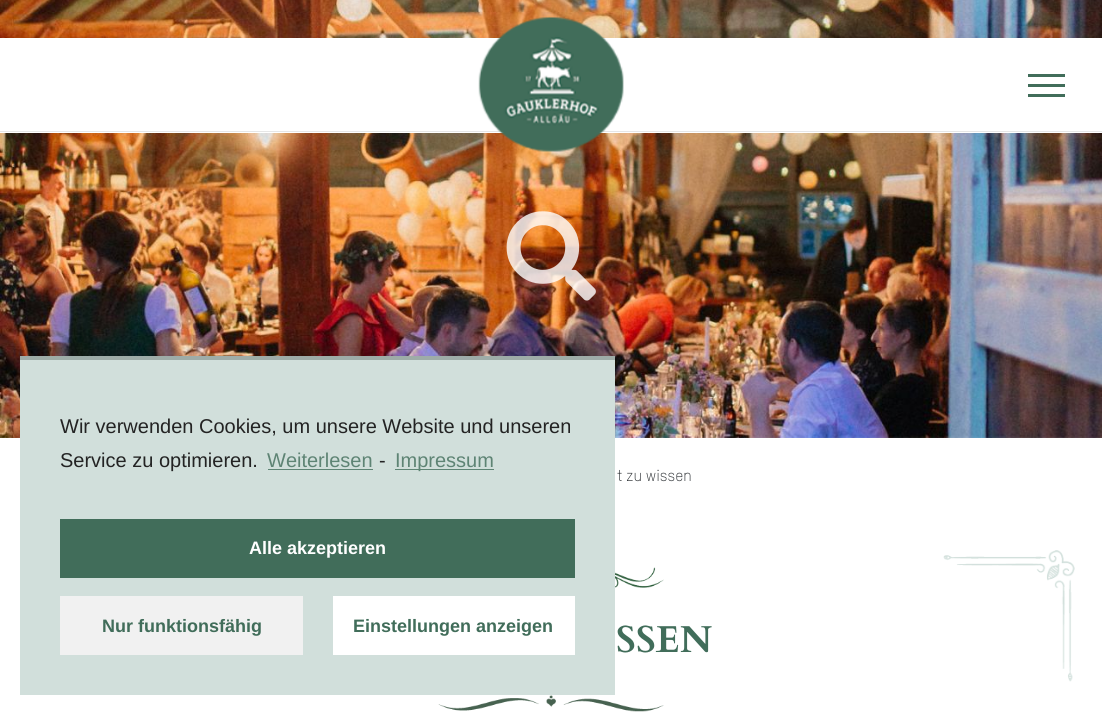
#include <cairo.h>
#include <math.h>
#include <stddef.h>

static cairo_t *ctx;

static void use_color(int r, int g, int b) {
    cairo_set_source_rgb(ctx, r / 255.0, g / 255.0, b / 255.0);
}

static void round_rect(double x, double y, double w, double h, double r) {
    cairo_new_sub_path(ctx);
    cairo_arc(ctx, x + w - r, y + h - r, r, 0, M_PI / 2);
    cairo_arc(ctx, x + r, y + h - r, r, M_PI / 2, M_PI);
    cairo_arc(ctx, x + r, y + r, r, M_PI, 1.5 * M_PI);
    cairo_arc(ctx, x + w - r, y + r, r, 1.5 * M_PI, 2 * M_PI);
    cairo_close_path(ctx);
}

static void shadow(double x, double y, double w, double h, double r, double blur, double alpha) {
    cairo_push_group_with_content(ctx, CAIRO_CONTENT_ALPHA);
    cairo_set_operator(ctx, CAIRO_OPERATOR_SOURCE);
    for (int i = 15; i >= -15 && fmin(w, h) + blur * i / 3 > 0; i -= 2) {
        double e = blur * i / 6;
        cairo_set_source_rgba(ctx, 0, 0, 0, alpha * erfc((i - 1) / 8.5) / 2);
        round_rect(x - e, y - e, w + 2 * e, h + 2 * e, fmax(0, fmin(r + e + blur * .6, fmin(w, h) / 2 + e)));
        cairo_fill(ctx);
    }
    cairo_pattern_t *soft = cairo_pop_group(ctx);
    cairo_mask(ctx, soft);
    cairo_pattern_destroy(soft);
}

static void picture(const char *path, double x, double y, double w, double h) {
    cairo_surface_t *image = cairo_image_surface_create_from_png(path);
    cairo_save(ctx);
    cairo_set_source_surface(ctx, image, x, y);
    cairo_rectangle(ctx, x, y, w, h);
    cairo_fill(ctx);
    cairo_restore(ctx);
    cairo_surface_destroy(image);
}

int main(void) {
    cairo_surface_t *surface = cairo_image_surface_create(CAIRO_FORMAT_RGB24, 1102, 714);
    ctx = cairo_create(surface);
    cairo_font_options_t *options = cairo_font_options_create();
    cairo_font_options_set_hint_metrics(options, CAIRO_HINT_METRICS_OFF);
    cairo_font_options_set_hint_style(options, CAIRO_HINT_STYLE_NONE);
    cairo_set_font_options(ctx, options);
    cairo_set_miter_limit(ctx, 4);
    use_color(255, 255, 255);
    cairo_paint(ctx);
    picture("img2.png", 0, 0, 1102, 438);
    use_color(209, 223, 219);
    cairo_rectangle(ctx, 20, 360, 595, 335);
    cairo_fill(ctx);
    use_color(158, 172, 168);
    cairo_rectangle(ctx, 20, 356, 595, 4);
    cairo_fill(ctx);
    cairo_select_font_face(ctx, "Liberation Sans", CAIRO_FONT_SLANT_NORMAL, CAIRO_FONT_WEIGHT_NORMAL);
    cairo_set_font_size(ctx, 20);
    use_color(35, 35, 35);
    cairo_move_to(ctx, 60, 433);
    cairo_show_text(ctx, "Wir verwenden Cookies, um unsere Website und unseren");
    cairo_move_to(ctx, 60, 467);
    cairo_show_text(ctx, "Service zu optimieren.");
    use_color(94, 132, 116);
    cairo_move_to(ctx, 267, 467);
    cairo_show_text(ctx, "Weiterlesen");
    cairo_rectangle(ctx, 268, 469, 105, 1);
    cairo_fill(ctx);
    use_color(35, 35, 35);
    cairo_move_to(ctx, 379, 467);
    cairo_show_text(ctx, "-");
    use_color(94, 132, 116);
    cairo_rectangle(ctx, 395, 469, 99, 1);
    cairo_fill(ctx);
    cairo_move_to(ctx, 395, 467);
    cairo_show_text(ctx, "Impressum");
    use_color(65, 109, 90);
    cairo_rectangle(ctx, 60, 519, 515, 59);
    cairo_fill(ctx);
    cairo_select_font_face(ctx, "Liberation Sans", CAIRO_FONT_SLANT_NORMAL, CAIRO_FONT_WEIGHT_BOLD);
    cairo_set_font_size(ctx, 18);
    use_color(255, 255, 255);
    cairo_move_to(ctx, 249, 554);
    cairo_show_text(ctx, "Alle akzeptieren");
    use_color(241, 241, 241);
    cairo_rectangle(ctx, 60, 596, 243, 59);
    cairo_fill(ctx);
    use_color(65, 109, 90);
    cairo_move_to(ctx, 102, 632);
    cairo_show_text(ctx, "Nur funktionsfähig");
    use_color(255, 255, 255);
    cairo_rectangle(ctx, 333, 596, 242, 59);
    cairo_fill(ctx);
    use_color(65, 109, 90);
    cairo_move_to(ctx, 353, 632);
    cairo_show_text(ctx, "Einstellungen anzeigen");
    use_color(0, 0, 0);
    shadow(0, 38, 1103, 95, 0, 8.5, 0.05);
    use_color(255, 255, 255);
    cairo_rectangle(ctx, 0, 38, 1102, 95);
    cairo_fill(ctx);
    use_color(230, 230, 230);
    cairo_rectangle(ctx, 0, 131, 1102, 1);
    cairo_fill(ctx);
    picture("img1.png", 478, 17, 146, 135);
    use_color(65, 109, 90);
    cairo_rectangle(ctx, 1028, 74, 37, 3);
    cairo_fill(ctx);
    cairo_rectangle(ctx, 1028, 84, 37, 3);
    cairo_fill(ctx);
    cairo_rectangle(ctx, 1028, 94, 37, 3);
    cairo_fill(ctx);
    cairo_select_font_face(ctx, "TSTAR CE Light", CAIRO_FONT_SLANT_NORMAL, CAIRO_FONT_WEIGHT_NORMAL);
    cairo_set_font_size(ctx, 15.5);
    use_color(33, 37, 41);
    cairo_move_to(ctx, 617, 481);
    cairo_show_text(ctx, "t zu wissen");
    picture("img3.png", 506, 211, 90, 90);
    picture("img4.png", 615, 567, 49, 21);
    cairo_select_font_face(ctx, "Cardo", CAIRO_FONT_SLANT_NORMAL, CAIRO_FONT_WEIGHT_BOLD);
    cairo_set_font_size(ctx, 37.5);
    use_color(65, 109, 90);
    cairo_move_to(ctx, 616, 652);
    cairo_show_text(ctx, "SSEN");
    picture("img5.png", 438, 695, 226, 17);
    picture("img6.png", 943, 550, 132, 132);
    cairo_surface_write_to_png(surface, "result.png");
    cairo_font_options_destroy(options);
    cairo_destroy(ctx);
    cairo_surface_destroy(surface);
    return 0;
}
